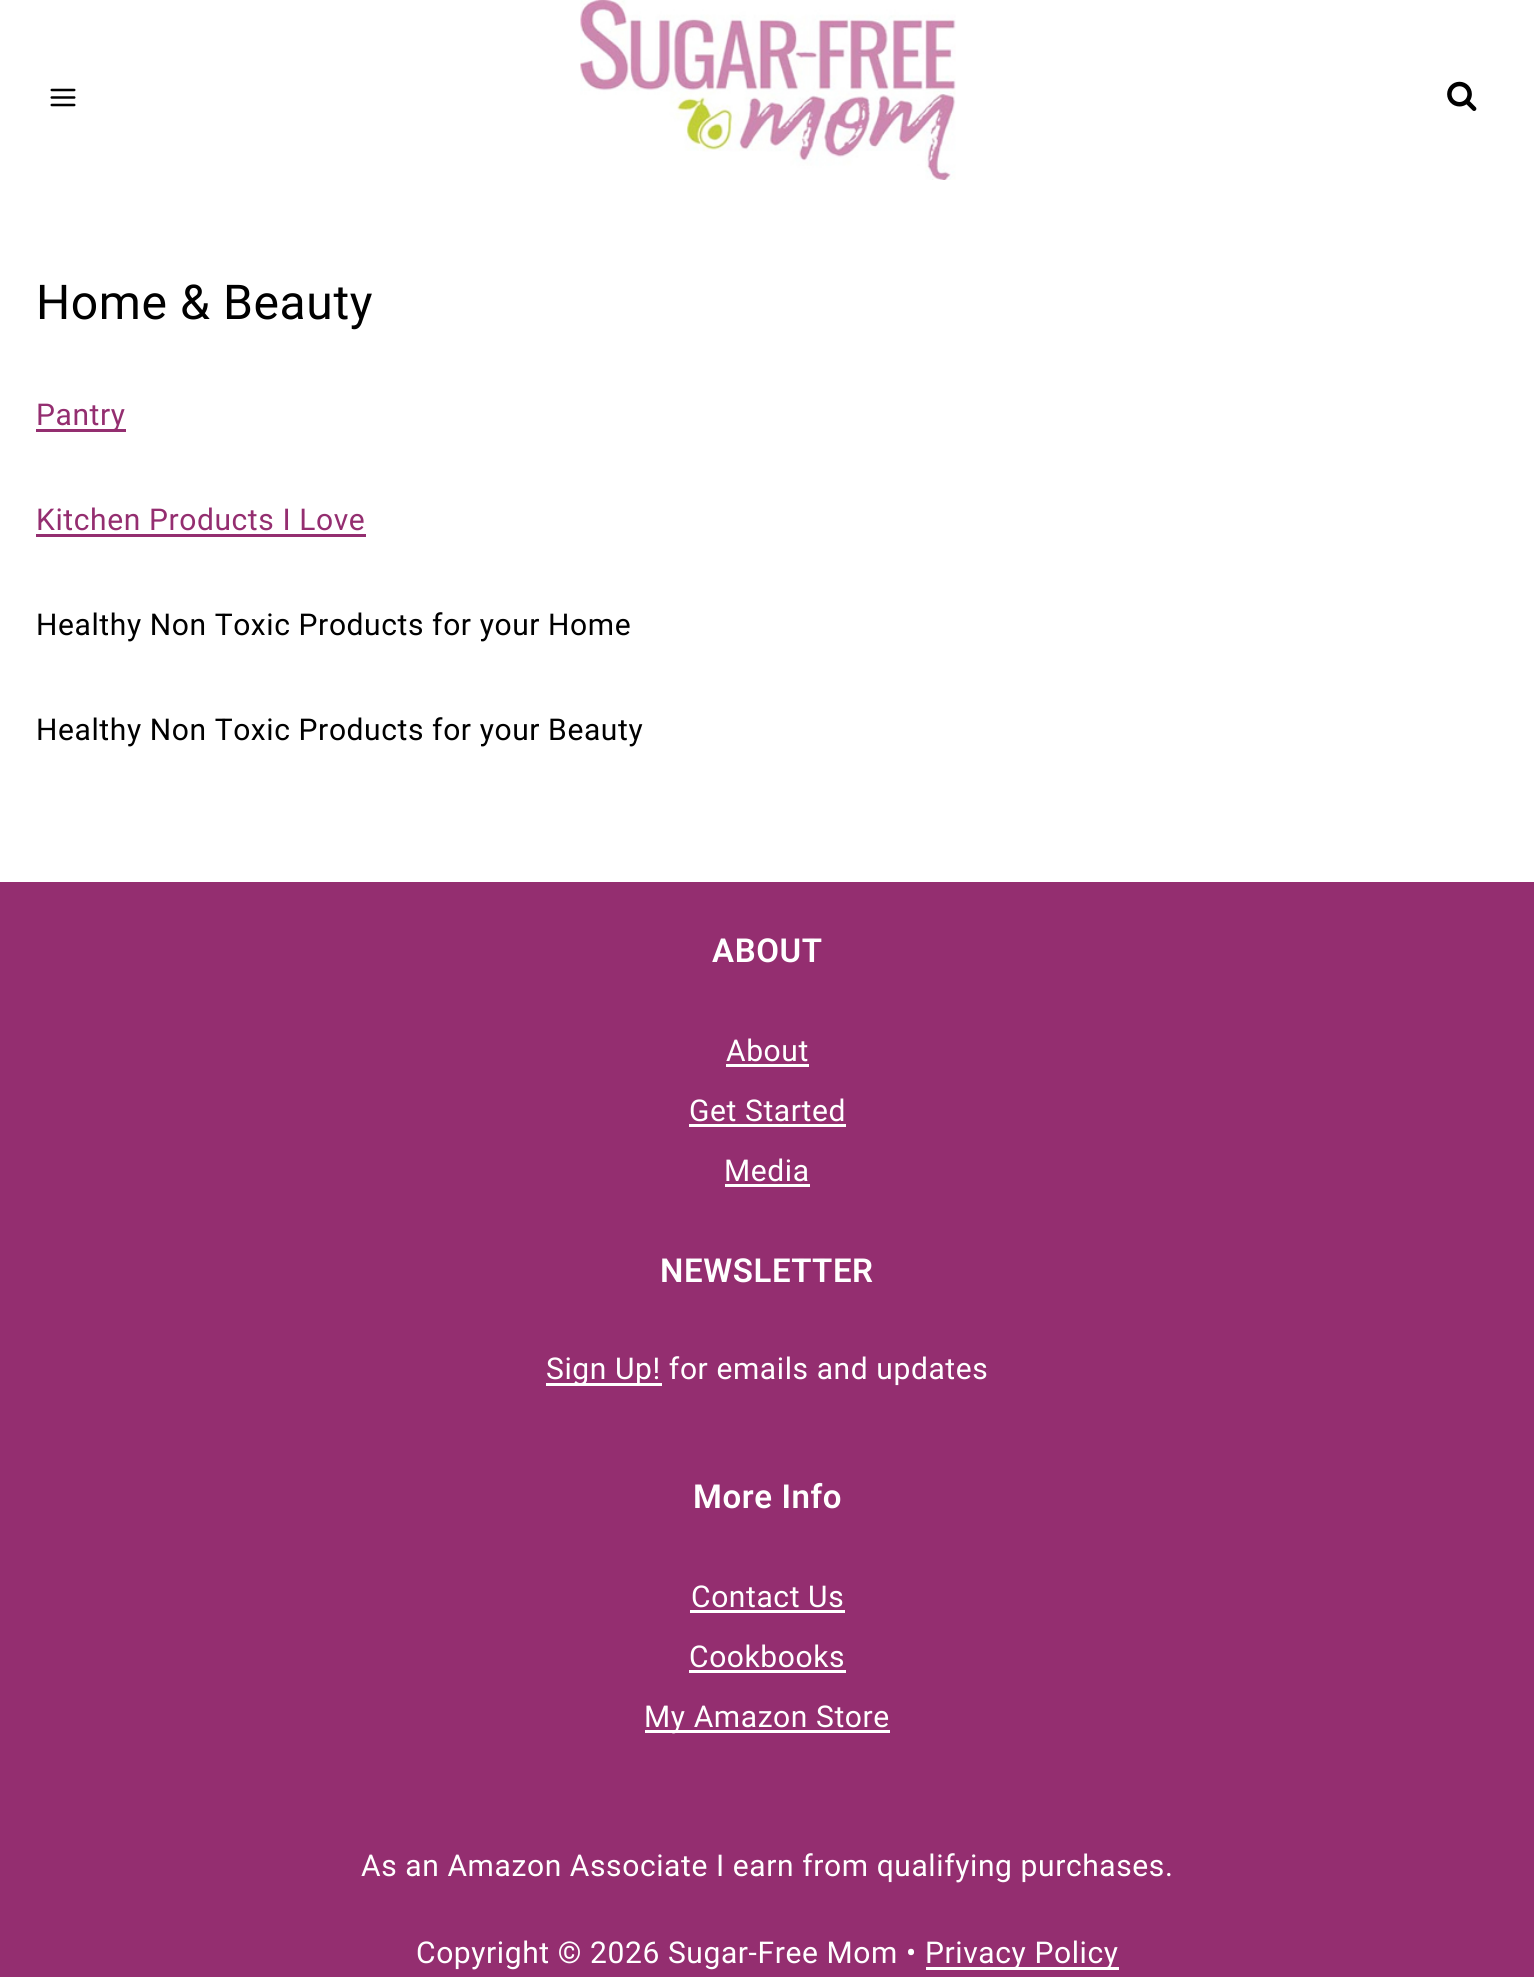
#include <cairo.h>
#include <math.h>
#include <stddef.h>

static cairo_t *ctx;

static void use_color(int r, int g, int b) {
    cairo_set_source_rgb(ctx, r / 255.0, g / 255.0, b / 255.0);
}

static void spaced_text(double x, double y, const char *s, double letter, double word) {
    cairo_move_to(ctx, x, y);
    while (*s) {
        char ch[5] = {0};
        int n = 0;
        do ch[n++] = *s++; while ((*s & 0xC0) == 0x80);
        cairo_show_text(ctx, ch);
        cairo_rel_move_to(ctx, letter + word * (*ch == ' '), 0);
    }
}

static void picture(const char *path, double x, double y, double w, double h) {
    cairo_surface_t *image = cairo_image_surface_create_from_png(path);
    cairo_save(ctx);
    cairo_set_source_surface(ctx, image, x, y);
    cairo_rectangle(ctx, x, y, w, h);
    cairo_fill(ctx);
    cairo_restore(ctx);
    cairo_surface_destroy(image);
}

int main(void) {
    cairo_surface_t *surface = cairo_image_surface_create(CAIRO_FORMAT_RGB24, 1534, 1977);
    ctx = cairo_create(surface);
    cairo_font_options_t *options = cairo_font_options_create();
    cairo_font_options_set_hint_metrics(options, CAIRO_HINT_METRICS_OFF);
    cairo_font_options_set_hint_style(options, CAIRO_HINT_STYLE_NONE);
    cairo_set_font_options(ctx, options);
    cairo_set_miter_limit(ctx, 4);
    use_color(255, 255, 255);
    cairo_paint(ctx);
    picture("img1.png", 50, 88, 26, 19);
    picture("img2.png", 580, 0, 376, 180);
    picture("img3.png", 1447, 81, 30, 30);
    cairo_select_font_face(ctx, "Roboto", CAIRO_FONT_SLANT_NORMAL, CAIRO_FONT_WEIGHT_NORMAL);
    cairo_set_font_size(ctx, 48);
    use_color(0, 0, 0);
    spaced_text(36, 319, "Home & Beauty", 0.6, 0);
    use_color(148, 46, 112);
    cairo_rectangle(ctx, 36, 429, 90, 3);
    cairo_fill(ctx);
    cairo_set_font_size(ctx, 30);
    spaced_text(36, 425, "Pantry", 0.6, 0);
    spaced_text(36, 530, "Kitchen Products I Love", 0.6, 0);
    cairo_rectangle(ctx, 36, 534, 330, 3);
    cairo_fill(ctx);
    use_color(0, 0, 0);
    spaced_text(36, 635, "Healthy Non Toxic Products for your Home", 0.6, 0);
    spaced_text(36, 740, "Healthy Non Toxic Products for your Beauty", 0.6, 0);
    use_color(148, 46, 112);
    cairo_rectangle(ctx, 0, 882, 1534, 1095);
    cairo_fill(ctx);
    cairo_select_font_face(ctx, "Roboto SemiBold", CAIRO_FONT_SLANT_NORMAL, CAIRO_FONT_WEIGHT_NORMAL);
    cairo_set_font_size(ctx, 33);
    use_color(255, 255, 255);
    spaced_text(712, 962, "ABOUT", 0.6, 0);
    cairo_select_font_face(ctx, "Roboto", CAIRO_FONT_SLANT_NORMAL, CAIRO_FONT_WEIGHT_NORMAL);
    cairo_set_font_size(ctx, 30);
    spaced_text(726, 1061, "About", 0.6, 0);
    cairo_rectangle(ctx, 726, 1064, 83, 3);
    cairo_fill(ctx);
    spaced_text(689, 1121, "Get Started", 0.6, 0);
    cairo_rectangle(ctx, 689, 1124, 157, 3);
    cairo_fill(ctx);
    spaced_text(724, 1181, "Media", 0.6, 0);
    cairo_rectangle(ctx, 725, 1184, 85, 3);
    cairo_fill(ctx);
    cairo_select_font_face(ctx, "Roboto SemiBold", CAIRO_FONT_SLANT_NORMAL, CAIRO_FONT_WEIGHT_NORMAL);
    cairo_set_font_size(ctx, 33);
    spaced_text(660, 1282, "NEWSLETTER", 0.6, 0);
    cairo_rectangle(ctx, 546, 1383, 116, 3);
    cairo_fill(ctx);
    cairo_select_font_face(ctx, "Roboto", CAIRO_FONT_SLANT_NORMAL, CAIRO_FONT_WEIGHT_NORMAL);
    cairo_set_font_size(ctx, 30);
    spaced_text(546, 1379, "Sign Up! for emails and updates", 0.6, 0);
    cairo_select_font_face(ctx, "Roboto SemiBold", CAIRO_FONT_SLANT_NORMAL, CAIRO_FONT_WEIGHT_NORMAL);
    cairo_set_font_size(ctx, 33);
    spaced_text(693, 1508, "More Info", 0.6, 0);
    cairo_select_font_face(ctx, "Roboto", CAIRO_FONT_SLANT_NORMAL, CAIRO_FONT_WEIGHT_NORMAL);
    cairo_set_font_size(ctx, 30);
    spaced_text(691, 1607, "Contact Us", 0.6, 0);
    cairo_rectangle(ctx, 690, 1610, 155, 3);
    cairo_fill(ctx);
    spaced_text(689, 1667, "Cookbooks", 0.6, 0);
    cairo_rectangle(ctx, 689, 1670, 157, 3);
    cairo_fill(ctx);
    cairo_rectangle(ctx, 645, 1730, 245, 3);
    cairo_fill(ctx);
    spaced_text(644, 1727, "My Amazon Store", 0.6, 0);
    spaced_text(361, 1876, "As an Amazon Associate I earn from qualifying purchases.", 0.6, 0);
    spaced_text(416, 1963, "Copyright © 2026 Sugar-Free Mom •", 0.6, 0);
    cairo_rectangle(ctx, 926, 1967, 193, 3);
    cairo_fill(ctx);
    spaced_text(925, 1963, "Privacy Policy", 0.6, 0);
    cairo_surface_write_to_png(surface, "result.png");
    cairo_font_options_destroy(options);
    cairo_destroy(ctx);
    cairo_surface_destroy(surface);
    return 0;
}
